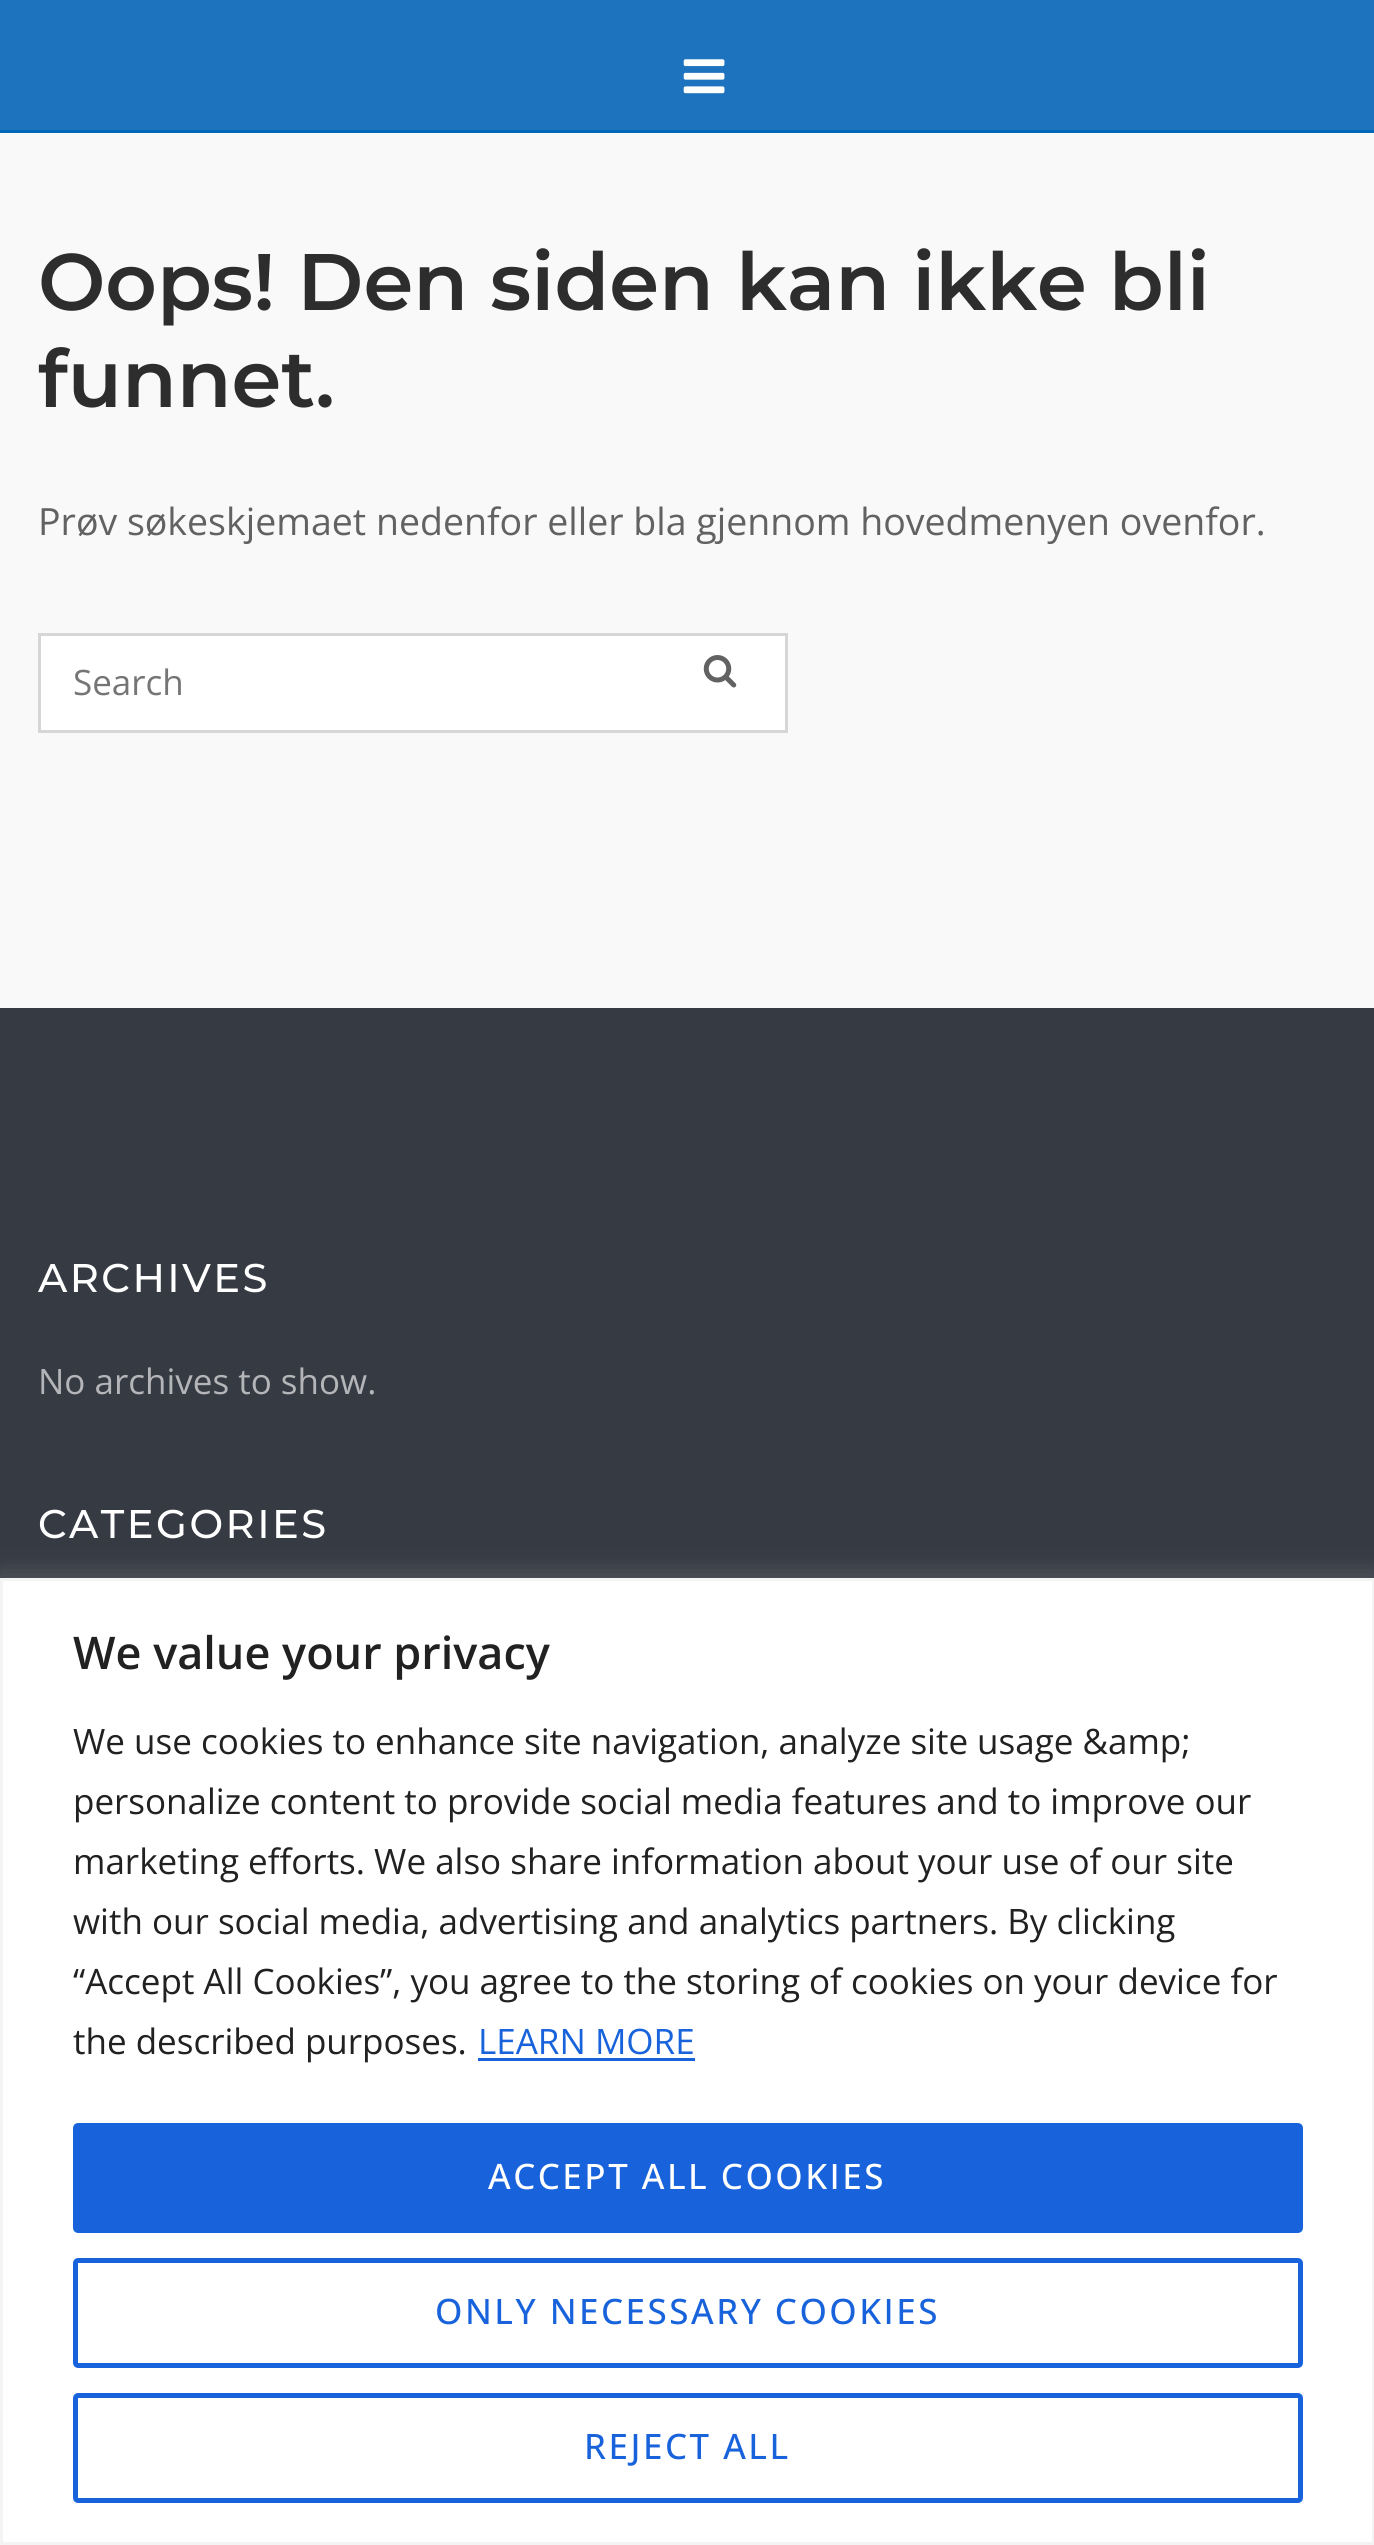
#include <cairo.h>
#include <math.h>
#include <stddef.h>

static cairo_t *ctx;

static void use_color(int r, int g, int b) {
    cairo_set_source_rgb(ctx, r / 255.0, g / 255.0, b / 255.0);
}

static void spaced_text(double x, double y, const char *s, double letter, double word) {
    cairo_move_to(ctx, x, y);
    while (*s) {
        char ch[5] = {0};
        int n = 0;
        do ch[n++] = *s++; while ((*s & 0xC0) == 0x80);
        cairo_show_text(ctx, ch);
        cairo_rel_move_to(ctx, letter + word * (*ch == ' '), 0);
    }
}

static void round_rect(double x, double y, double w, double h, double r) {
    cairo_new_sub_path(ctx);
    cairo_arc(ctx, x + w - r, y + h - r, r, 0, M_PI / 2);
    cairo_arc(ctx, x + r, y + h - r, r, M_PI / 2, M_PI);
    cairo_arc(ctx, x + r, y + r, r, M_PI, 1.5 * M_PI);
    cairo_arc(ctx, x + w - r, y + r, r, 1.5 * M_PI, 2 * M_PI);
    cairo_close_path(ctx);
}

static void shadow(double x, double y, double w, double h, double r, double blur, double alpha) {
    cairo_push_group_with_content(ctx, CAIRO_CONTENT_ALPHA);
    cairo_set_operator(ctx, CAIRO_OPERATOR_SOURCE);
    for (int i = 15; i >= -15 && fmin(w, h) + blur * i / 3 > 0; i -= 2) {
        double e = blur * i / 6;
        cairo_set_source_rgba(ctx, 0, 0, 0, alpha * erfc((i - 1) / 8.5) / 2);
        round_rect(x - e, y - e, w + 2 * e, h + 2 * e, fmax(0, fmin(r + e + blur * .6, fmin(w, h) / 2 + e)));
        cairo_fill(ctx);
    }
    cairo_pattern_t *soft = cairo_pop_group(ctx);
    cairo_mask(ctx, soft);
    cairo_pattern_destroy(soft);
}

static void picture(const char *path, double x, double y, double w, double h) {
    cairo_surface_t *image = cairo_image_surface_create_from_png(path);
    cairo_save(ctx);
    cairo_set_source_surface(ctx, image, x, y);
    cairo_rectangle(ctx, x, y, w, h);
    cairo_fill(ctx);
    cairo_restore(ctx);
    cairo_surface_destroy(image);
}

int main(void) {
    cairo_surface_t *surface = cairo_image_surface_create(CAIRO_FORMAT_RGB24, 1374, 2545);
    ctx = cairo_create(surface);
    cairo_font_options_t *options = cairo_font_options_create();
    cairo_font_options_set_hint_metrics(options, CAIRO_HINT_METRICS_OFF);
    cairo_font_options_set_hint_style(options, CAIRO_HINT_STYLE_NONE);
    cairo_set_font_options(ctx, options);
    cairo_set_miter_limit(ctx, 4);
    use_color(249, 249, 249);
    cairo_paint(ctx);
    use_color(30, 115, 190);
    cairo_rectangle(ctx, 0, 0, 1374, 130);
    cairo_fill(ctx);
    use_color(0, 104, 183);
    cairo_rectangle(ctx, 0, 130, 1374, 3);
    cairo_fill(ctx);
    picture("img1.png", 683, 59, 42, 35);
    cairo_select_font_face(ctx, "Montserrat SemiBold", CAIRO_FONT_SLANT_NORMAL, CAIRO_FONT_WEIGHT_NORMAL);
    cairo_set_font_size(ctx, 80);
    use_color(45, 45, 45);
    cairo_move_to(ctx, 38, 310);
    cairo_show_text(ctx, "Oops! Den siden kan ikke bli");
    cairo_move_to(ctx, 38, 407);
    cairo_show_text(ctx, "funnet.");
    cairo_select_font_face(ctx, "Open Sans", CAIRO_FONT_SLANT_NORMAL, CAIRO_FONT_WEIGHT_NORMAL);
    cairo_set_font_size(ctx, 37.5);
    use_color(98, 98, 98);
    cairo_move_to(ctx, 38, 535);
    cairo_show_text(ctx, "Prøv søkeskjemaet nedenfor eller bla gjennom hovedmenyen ovenfor.");
    use_color(255, 255, 255);
    cairo_rectangle(ctx, 39.5, 634.5, 747, 97);
    cairo_fill_preserve(ctx);
    use_color(214, 214, 214);
    cairo_set_line_width(ctx, 3);
    cairo_stroke(ctx);
    cairo_set_font_size(ctx, 35);
    use_color(117, 117, 117);
    cairo_move_to(ctx, 73, 695);
    cairo_show_text(ctx, "Search");
    picture("img2.png", 703, 655, 34, 33);
    use_color(54, 58, 67);
    cairo_rectangle(ctx, 0, 1008, 1374, 570);
    cairo_fill(ctx);
    cairo_select_font_face(ctx, "Montserrat Medium", CAIRO_FONT_SLANT_NORMAL, CAIRO_FONT_WEIGHT_NORMAL);
    cairo_set_font_size(ctx, 40);
    use_color(255, 255, 255);
    spaced_text(38, 1292, "ARCHIVES", 2.5, 0);
    cairo_select_font_face(ctx, "Open Sans", CAIRO_FONT_SLANT_NORMAL, CAIRO_FONT_WEIGHT_NORMAL);
    cairo_set_font_size(ctx, 35);
    use_color(180, 181, 184);
    cairo_move_to(ctx, 38, 1394);
    cairo_show_text(ctx, "No archives to show.");
    cairo_select_font_face(ctx, "Montserrat Medium", CAIRO_FONT_SLANT_NORMAL, CAIRO_FONT_WEIGHT_NORMAL);
    cairo_set_font_size(ctx, 40);
    use_color(255, 255, 255);
    spaced_text(38, 1538, "CATEGORIES", 2.5, 0);
    use_color(172, 171, 171);
    shadow(0, 1575, 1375, 968, 0, 12.5, 0.3);
    use_color(255, 255, 255);
    cairo_rectangle(ctx, 1.5, 1579.5, 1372, 964);
    cairo_fill_preserve(ctx);
    use_color(244, 244, 244);
    cairo_stroke(ctx);
    cairo_select_font_face(ctx, "Open Sans SemiBold", CAIRO_FONT_SLANT_NORMAL, CAIRO_FONT_WEIGHT_NORMAL);
    cairo_set_font_size(ctx, 45);
    use_color(33, 33, 33);
    cairo_move_to(ctx, 73, 1669);
    cairo_show_text(ctx, "We value your privacy");
    cairo_select_font_face(ctx, "Open Sans", CAIRO_FONT_SLANT_NORMAL, CAIRO_FONT_WEIGHT_NORMAL);
    cairo_set_font_size(ctx, 35);
    cairo_move_to(ctx, 73, 1754);
    cairo_show_text(ctx, "We use cookies to enhance site navigation, analyze site usage &amp;");
    cairo_move_to(ctx, 73, 1814);
    cairo_show_text(ctx, "personalize content to provide social media features and to improve our");
    cairo_move_to(ctx, 73, 1874);
    cairo_show_text(ctx, "marketing efforts. We also share information about your use of our site");
    cairo_move_to(ctx, 73, 1934);
    cairo_show_text(ctx, "with our social media, advertising and analytics partners. By clicking");
    cairo_move_to(ctx, 73, 1994);
    cairo_show_text(ctx, "“Accept All Cookies”, you agree to the storing of cookies on your device for");
    cairo_move_to(ctx, 73, 2054);
    cairo_show_text(ctx, "the described purposes.");
    use_color(24, 99, 220);
    cairo_move_to(ctx, 478, 2054);
    cairo_show_text(ctx, "LEARN MORE");
    cairo_rectangle(ctx, 478, 2058, 217, 3);
    cairo_fill(ctx);
    round_rect(75.5, 2125.5, 1225, 105, 2.5);
    cairo_fill_preserve(ctx);
    cairo_set_line_width(ctx, 5);
    cairo_stroke(ctx);
    cairo_select_font_face(ctx, "Open Sans Medium", CAIRO_FONT_SLANT_NORMAL, CAIRO_FONT_WEIGHT_NORMAL);
    use_color(255, 255, 255);
    spaced_text(488, 2189, "ACCEPT ALL COOKIES", 2.5, 0);
    round_rect(75.5, 2260.5, 1225, 105, 2.5);
    use_color(24, 99, 220);
    cairo_stroke(ctx);
    spaced_text(435, 2324, "ONLY NECESSARY COOKIES", 2.5, 0);
    round_rect(75.5, 2395.5, 1225, 105, 2.5);
    cairo_stroke(ctx);
    spaced_text(584, 2459, "REJECT ALL", 2.5, 0);
    cairo_surface_write_to_png(surface, "result.png");
    cairo_font_options_destroy(options);
    cairo_destroy(ctx);
    cairo_surface_destroy(surface);
    return 0;
}
